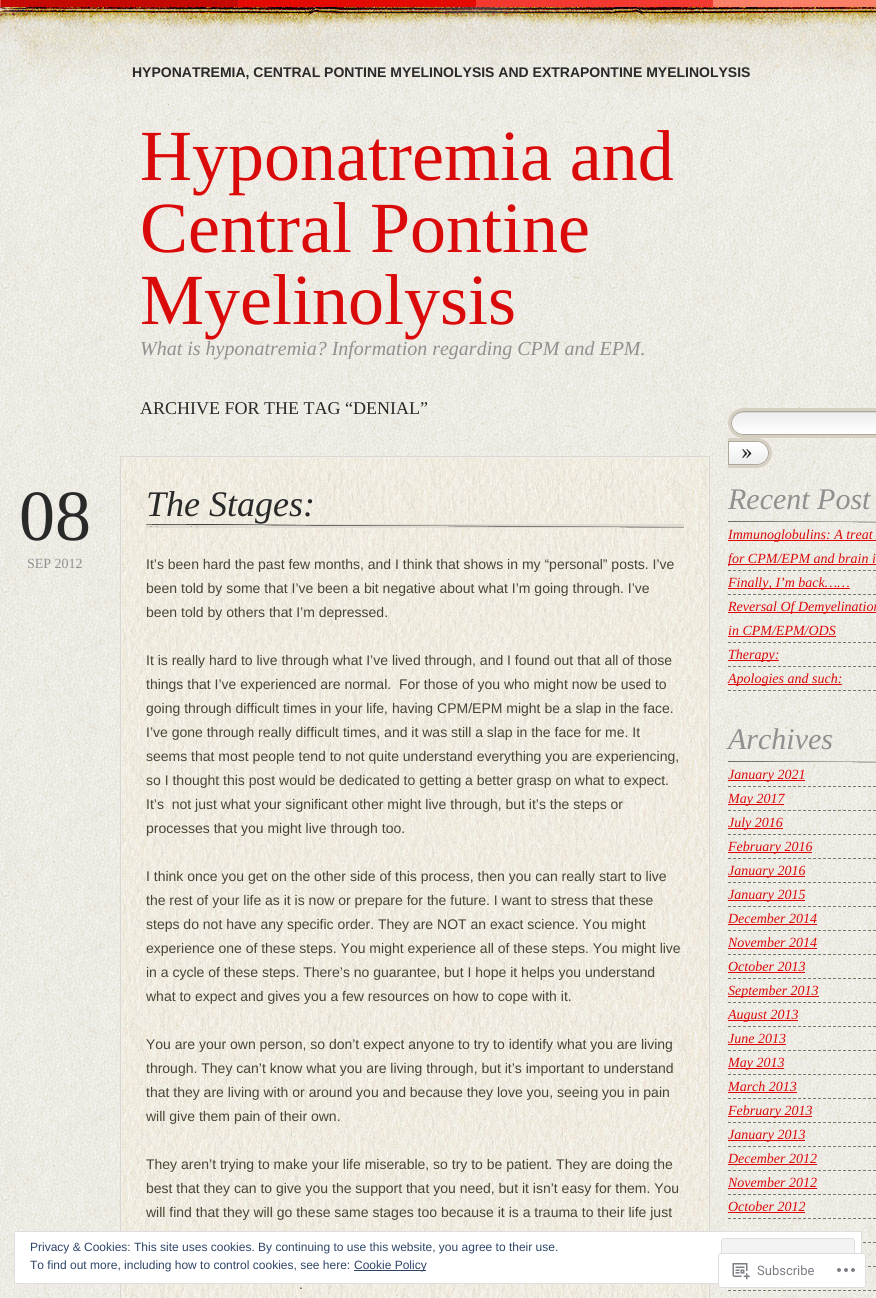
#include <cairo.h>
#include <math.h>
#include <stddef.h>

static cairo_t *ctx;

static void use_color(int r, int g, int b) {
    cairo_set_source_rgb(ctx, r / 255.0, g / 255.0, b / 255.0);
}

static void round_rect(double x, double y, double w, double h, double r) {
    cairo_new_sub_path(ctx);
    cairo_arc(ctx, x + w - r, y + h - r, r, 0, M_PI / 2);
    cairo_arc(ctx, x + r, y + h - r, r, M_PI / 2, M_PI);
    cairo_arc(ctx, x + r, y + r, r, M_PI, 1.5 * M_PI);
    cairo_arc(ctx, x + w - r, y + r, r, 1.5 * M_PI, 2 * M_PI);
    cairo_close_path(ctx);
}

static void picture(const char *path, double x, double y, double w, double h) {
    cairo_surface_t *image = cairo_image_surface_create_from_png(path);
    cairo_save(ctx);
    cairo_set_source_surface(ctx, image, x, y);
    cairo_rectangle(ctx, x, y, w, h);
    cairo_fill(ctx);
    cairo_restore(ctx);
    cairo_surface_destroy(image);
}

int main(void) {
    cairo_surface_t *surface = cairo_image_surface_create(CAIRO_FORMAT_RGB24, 876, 1298);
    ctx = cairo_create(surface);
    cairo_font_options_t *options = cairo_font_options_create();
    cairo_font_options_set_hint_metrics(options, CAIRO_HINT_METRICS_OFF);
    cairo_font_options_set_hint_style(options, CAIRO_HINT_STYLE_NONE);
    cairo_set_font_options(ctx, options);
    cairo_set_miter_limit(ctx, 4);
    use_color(255, 255, 255);
    cairo_paint(ctx);
    picture("img1.png", 0, 110, 876, 1188);
    picture("img2.png", 0, 0, 876, 110);
    cairo_select_font_face(ctx, "Liberation Sans", CAIRO_FONT_SLANT_NORMAL, CAIRO_FONT_WEIGHT_BOLD);
    cairo_set_font_size(ctx, 14);
    use_color(41, 41, 41);
    cairo_move_to(ctx, 132, 77);
    cairo_show_text(ctx, "HYPONATREMIA, CENTRAL PONTINE MYELINOLYSIS AND EXTRAPONTINE MYELINOLYSIS");
    cairo_select_font_face(ctx, "Liberation Serif", CAIRO_FONT_SLANT_NORMAL, CAIRO_FONT_WEIGHT_NORMAL);
    cairo_set_font_size(ctx, 72);
    use_color(218, 10, 10);
    cairo_move_to(ctx, 140, 180);
    cairo_show_text(ctx, "Hyponatremia and");
    cairo_move_to(ctx, 140, 252);
    cairo_show_text(ctx, "Central Pontine");
    cairo_move_to(ctx, 140, 324);
    cairo_show_text(ctx, "Myelinolysis");
    cairo_select_font_face(ctx, "Liberation Serif", CAIRO_FONT_SLANT_ITALIC, CAIRO_FONT_WEIGHT_NORMAL);
    cairo_set_font_size(ctx, 20);
    use_color(144, 144, 144);
    cairo_move_to(ctx, 140, 355);
    cairo_show_text(ctx, "What is hyponatremia? Information regarding CPM and EPM.");
    cairo_select_font_face(ctx, "Liberation Serif", CAIRO_FONT_SLANT_NORMAL, CAIRO_FONT_WEIGHT_NORMAL);
    cairo_set_font_size(ctx, 18);
    use_color(41, 41, 41);
    cairo_move_to(ctx, 140, 414);
    cairo_show_text(ctx, "ARCHIVE FOR THE TAG “DENIAL”");
    cairo_set_font_size(ctx, 72);
    cairo_move_to(ctx, 19, 540);
    cairo_show_text(ctx, "08");
    cairo_set_font_size(ctx, 14);
    use_color(144, 144, 144);
    cairo_move_to(ctx, 27, 568);
    cairo_show_text(ctx, "SEP 2012");
    cairo_rectangle(ctx, 120.5, 456.5, 589, 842);
    use_color(216, 215, 212);
    cairo_set_line_width(ctx, 1);
    cairo_stroke(ctx);
    picture("img3.png", 122, 458, 586, 840);
    cairo_rectangle(ctx, 121.5, 457.5, 587, 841);
    use_color(240, 239, 228);
    cairo_stroke(ctx);
    picture("img4.png", 146, 524, 538, 4);
    cairo_select_font_face(ctx, "Liberation Serif", CAIRO_FONT_SLANT_ITALIC, CAIRO_FONT_WEIGHT_NORMAL);
    cairo_set_font_size(ctx, 36);
    use_color(41, 41, 41);
    cairo_move_to(ctx, 146, 516);
    cairo_show_text(ctx, "The Stages:");
    cairo_select_font_face(ctx, "Liberation Sans", CAIRO_FONT_SLANT_NORMAL, CAIRO_FONT_WEIGHT_NORMAL);
    cairo_set_font_size(ctx, 14);
    use_color(71, 69, 52);
    cairo_move_to(ctx, 146, 569);
    cairo_show_text(ctx, "It’s been hard the past few months, and I think that shows in my “personal” posts. I’ve");
    cairo_move_to(ctx, 146, 593);
    cairo_show_text(ctx, "been told by some that I’ve been a bit negative about what I’m going through. I’ve");
    cairo_move_to(ctx, 146, 617);
    cairo_show_text(ctx, "been told by others that I’m depressed.");
    cairo_move_to(ctx, 146, 665);
    cairo_show_text(ctx, "It is really hard to live through what I’ve lived through, and I found out that all of those");
    cairo_move_to(ctx, 146, 689);
    cairo_show_text(ctx, "things that I’ve experienced are normal.  For those of you who might now be used to");
    cairo_move_to(ctx, 146, 713);
    cairo_show_text(ctx, "going through difficult times in your life, having CPM/EPM might be a slap in the face.");
    cairo_move_to(ctx, 146, 737);
    cairo_show_text(ctx, "I’ve gone through really difficult times, and it was still a slap in the face for me. It");
    cairo_move_to(ctx, 146, 761);
    cairo_show_text(ctx, "seems that most people tend to not quite understand everything you are experiencing,");
    cairo_move_to(ctx, 146, 785);
    cairo_show_text(ctx, "so I thought this post would be dedicated to getting a better grasp on what to expect.");
    cairo_move_to(ctx, 146, 809);
    cairo_show_text(ctx, "It’s  not just what your significant other might live through, but it’s the steps or");
    cairo_move_to(ctx, 146, 833);
    cairo_show_text(ctx, "processes that you might live through too.");
    cairo_move_to(ctx, 146, 881);
    cairo_show_text(ctx, "I think once you get on the other side of this process, then you can really start to live");
    cairo_move_to(ctx, 146, 905);
    cairo_show_text(ctx, "the rest of your life as it is now or prepare for the future. I want to stress that these");
    cairo_move_to(ctx, 146, 929);
    cairo_show_text(ctx, "steps do not have any specific order. They are NOT an exact science. You might");
    cairo_move_to(ctx, 146, 953);
    cairo_show_text(ctx, "experience one of these steps. You might experience all of these steps. You might live");
    cairo_move_to(ctx, 146, 977);
    cairo_show_text(ctx, "in a cycle of these steps. There’s no guarantee, but I hope it helps you understand");
    cairo_move_to(ctx, 146, 1001);
    cairo_show_text(ctx, "what to expect and gives you a few resources on how to cope with it.");
    cairo_move_to(ctx, 146, 1049);
    cairo_show_text(ctx, "You are your own person, so don’t expect anyone to try to identify what you are living");
    cairo_move_to(ctx, 146, 1073);
    cairo_show_text(ctx, "through. They can’t know what you are living through, but it’s important to understand");
    cairo_move_to(ctx, 146, 1097);
    cairo_show_text(ctx, "that they are living with or around you and because they love you, seeing you in pain");
    cairo_move_to(ctx, 146, 1121);
    cairo_show_text(ctx, "will give them pain of their own.");
    cairo_move_to(ctx, 146, 1169);
    cairo_show_text(ctx, "They aren’t trying to make your life miserable, so try to be patient. They are doing the");
    cairo_move_to(ctx, 146, 1193);
    cairo_show_text(ctx, "best that they can to give you the support that you need, but it isn’t easy for them. You");
    cairo_move_to(ctx, 146, 1217);
    cairo_show_text(ctx, "will find that they will go these same stages too because it is a trauma to their life just");
    cairo_move_to(ctx, 299, 1289);
    cairo_show_text(ctx, ".");
    picture("img5.png", 728, 408, 148, 30);
    picture("img6.png", 728, 438, 44, 30);
    picture("img7.png", 728, 521, 148, 2);
    cairo_select_font_face(ctx, "Liberation Serif", CAIRO_FONT_SLANT_ITALIC, CAIRO_FONT_WEIGHT_NORMAL);
    cairo_set_font_size(ctx, 30);
    use_color(144, 144, 144);
    cairo_move_to(ctx, 728, 509);
    cairo_show_text(ctx, "Recent Post");
    picture("img8.png", 728, 570, 148, 1);
    use_color(218, 10, 10);
    cairo_rectangle(ctx, 728, 540, 148, 1);
    cairo_fill(ctx);
    cairo_set_font_size(ctx, 14);
    cairo_move_to(ctx, 728, 539);
    cairo_show_text(ctx, "Immunoglobulins: A treat");
    cairo_rectangle(ctx, 728, 564, 148, 1);
    cairo_fill(ctx);
    cairo_move_to(ctx, 728, 563);
    cairo_show_text(ctx, "for CPM/EPM and brain i");
    picture("img9.png", 728, 594, 148, 1);
    cairo_rectangle(ctx, 728, 588, 122, 1);
    cairo_fill(ctx);
    cairo_move_to(ctx, 728, 587);
    cairo_show_text(ctx, "Finally, I’m back……");
    picture("img10.png", 728, 642, 148, 1);
    cairo_rectangle(ctx, 728, 612, 148, 1);
    cairo_fill(ctx);
    cairo_move_to(ctx, 728, 611);
    cairo_show_text(ctx, "Reversal Of Demyelination");
    cairo_move_to(ctx, 728, 635);
    cairo_show_text(ctx, "in CPM/EPM/ODS");
    cairo_rectangle(ctx, 728, 636, 108, 1);
    cairo_fill(ctx);
    picture("img11.png", 728, 666, 148, 1);
    cairo_rectangle(ctx, 728, 660, 51, 1);
    cairo_fill(ctx);
    cairo_move_to(ctx, 728, 659);
    cairo_show_text(ctx, "Therapy:");
    picture("img12.png", 728, 690, 148, 1);
    cairo_rectangle(ctx, 728, 684, 114, 1);
    cairo_fill(ctx);
    cairo_move_to(ctx, 728, 683);
    cairo_show_text(ctx, "Apologies and such:");
    picture("img13.png", 728, 761, 148, 2);
    cairo_set_font_size(ctx, 30);
    use_color(144, 144, 144);
    cairo_move_to(ctx, 728, 749);
    cairo_show_text(ctx, "Archives");
    picture("img14.png", 728, 786, 148, 1);
    use_color(218, 10, 10);
    cairo_rectangle(ctx, 728, 780, 77, 1);
    cairo_fill(ctx);
    cairo_set_font_size(ctx, 14);
    cairo_move_to(ctx, 728, 779);
    cairo_show_text(ctx, "January 2021");
    picture("img15.png", 728, 810, 148, 1);
    cairo_rectangle(ctx, 728, 804, 56, 1);
    cairo_fill(ctx);
    cairo_move_to(ctx, 728, 803);
    cairo_show_text(ctx, "May 2017");
    picture("img16.png", 728, 834, 148, 1);
    cairo_rectangle(ctx, 728, 828, 55, 1);
    cairo_fill(ctx);
    cairo_move_to(ctx, 728, 827);
    cairo_show_text(ctx, "July 2016");
    picture("img17.png", 728, 858, 148, 1);
    cairo_rectangle(ctx, 728, 852, 84, 1);
    cairo_fill(ctx);
    cairo_move_to(ctx, 728, 851);
    cairo_show_text(ctx, "February 2016");
    picture("img18.png", 728, 882, 148, 1);
    cairo_rectangle(ctx, 728, 876, 77, 1);
    cairo_fill(ctx);
    cairo_move_to(ctx, 728, 875);
    cairo_show_text(ctx, "January 2016");
    picture("img19.png", 728, 906, 148, 1);
    cairo_rectangle(ctx, 728, 900, 77, 1);
    cairo_fill(ctx);
    cairo_move_to(ctx, 728, 899);
    cairo_show_text(ctx, "January 2015");
    picture("img20.png", 728, 930, 148, 1);
    cairo_move_to(ctx, 728, 923);
    cairo_show_text(ctx, "December 2014");
    cairo_rectangle(ctx, 728, 924, 89, 1);
    cairo_fill(ctx);
    picture("img21.png", 728, 954, 148, 1);
    cairo_move_to(ctx, 728, 947);
    cairo_show_text(ctx, "November 2014");
    cairo_rectangle(ctx, 728, 948, 89, 1);
    cairo_fill(ctx);
    picture("img22.png", 728, 978, 148, 1);
    cairo_move_to(ctx, 728, 971);
    cairo_show_text(ctx, "October 2013");
    cairo_rectangle(ctx, 728, 972, 77, 1);
    cairo_fill(ctx);
    picture("img23.png", 728, 1002, 148, 1);
    cairo_rectangle(ctx, 728, 996, 91, 1);
    cairo_fill(ctx);
    cairo_move_to(ctx, 728, 995);
    cairo_show_text(ctx, "September 2013");
    picture("img24.png", 728, 1026, 148, 1);
    cairo_rectangle(ctx, 728, 1020, 70, 1);
    cairo_fill(ctx);
    cairo_move_to(ctx, 728, 1019);
    cairo_show_text(ctx, "August 2013");
    picture("img25.png", 728, 1050, 148, 1);
    cairo_move_to(ctx, 728, 1043);
    cairo_show_text(ctx, "June 2013");
    cairo_rectangle(ctx, 728, 1044, 58, 1);
    cairo_fill(ctx);
    picture("img26.png", 728, 1074, 148, 1);
    cairo_rectangle(ctx, 728, 1068, 56, 1);
    cairo_fill(ctx);
    cairo_move_to(ctx, 728, 1067);
    cairo_show_text(ctx, "May 2013");
    picture("img27.png", 728, 1098, 148, 1);
    cairo_move_to(ctx, 728, 1091);
    cairo_show_text(ctx, "March 2013");
    cairo_rectangle(ctx, 728, 1092, 69, 1);
    cairo_fill(ctx);
    picture("img28.png", 728, 1122, 148, 1);
    cairo_rectangle(ctx, 728, 1116, 84, 1);
    cairo_fill(ctx);
    cairo_move_to(ctx, 728, 1115);
    cairo_show_text(ctx, "February 2013");
    picture("img29.png", 728, 1146, 148, 1);
    cairo_rectangle(ctx, 728, 1140, 77, 1);
    cairo_fill(ctx);
    cairo_move_to(ctx, 728, 1139);
    cairo_show_text(ctx, "January 2013");
    picture("img30.png", 728, 1170, 148, 1);
    cairo_move_to(ctx, 728, 1163);
    cairo_show_text(ctx, "December 2012");
    cairo_rectangle(ctx, 728, 1164, 89, 1);
    cairo_fill(ctx);
    picture("img31.png", 728, 1194, 148, 1);
    cairo_move_to(ctx, 728, 1187);
    cairo_show_text(ctx, "November 2012");
    cairo_rectangle(ctx, 728, 1188, 89, 1);
    cairo_fill(ctx);
    picture("img32.png", 728, 1218, 148, 1);
    cairo_move_to(ctx, 728, 1211);
    cairo_show_text(ctx, "October 2012");
    cairo_rectangle(ctx, 728, 1212, 77, 1);
    cairo_fill(ctx);
    picture("img33.png", 863, 1242, 13, 1);
    picture("img34.png", 863, 1266, 13, 1);
    picture("img35.png", 728, 1290, 148, 1);
    cairo_rectangle(ctx, 728, 1284, 55, 1);
    cairo_fill(ctx);
    use_color(255, 255, 255);
    cairo_rectangle(ctx, 14.5, 1231.5, 847, 52);
    cairo_fill_preserve(ctx);
    use_color(222, 222, 222);
    cairo_stroke(ctx);
    cairo_select_font_face(ctx, "Liberation Sans", CAIRO_FONT_SLANT_NORMAL, CAIRO_FONT_WEIGHT_NORMAL);
    cairo_set_font_size(ctx, 12);
    use_color(46, 68, 103);
    cairo_move_to(ctx, 30, 1251);
    cairo_show_text(ctx, "Privacy & Cookies: This site uses cookies. By continuing to use this website, you agree to their use.");
    use_color(243, 243, 243);
    round_rect(721.5, 1238.5, 133, 38, 2.5);
    cairo_fill_preserve(ctx);
    use_color(222, 222, 222);
    cairo_stroke(ctx);
    use_color(46, 68, 103);
    cairo_move_to(ctx, 30, 1269);
    cairo_show_text(ctx, "To find out more, including how to control cookies, see here:");
    cairo_rectangle(ctx, 354, 1270, 72, 1);
    cairo_fill(ctx);
    cairo_move_to(ctx, 354, 1269);
    cairo_show_text(ctx, "Cookie Policy");
    cairo_set_source_rgba(ctx, 1, 1, 1, 0.98);
    round_rect(718, 1253, 148, 35, 3);
    cairo_fill(ctx);
    round_rect(718.5, 1253.5, 147, 34, 2.5);
    cairo_set_source_rgba(ctx, 0.863, 0.863, 0.871, 0.98);
    cairo_stroke(ctx);
    picture("img36.png", 732, 1263, 18, 17);
    cairo_select_font_face(ctx, "Roboto", CAIRO_FONT_SLANT_NORMAL, CAIRO_FONT_WEIGHT_NORMAL);
    cairo_set_font_size(ctx, 13);
    use_color(122, 126, 132);
    cairo_move_to(ctx, 757, 1275);
    cairo_show_text(ctx, "Subscribe");
    picture("img37.png", 837, 1268, 18, 4);
    cairo_surface_write_to_png(surface, "result.png");
    cairo_font_options_destroy(options);
    cairo_destroy(ctx);
    cairo_surface_destroy(surface);
    return 0;
}
